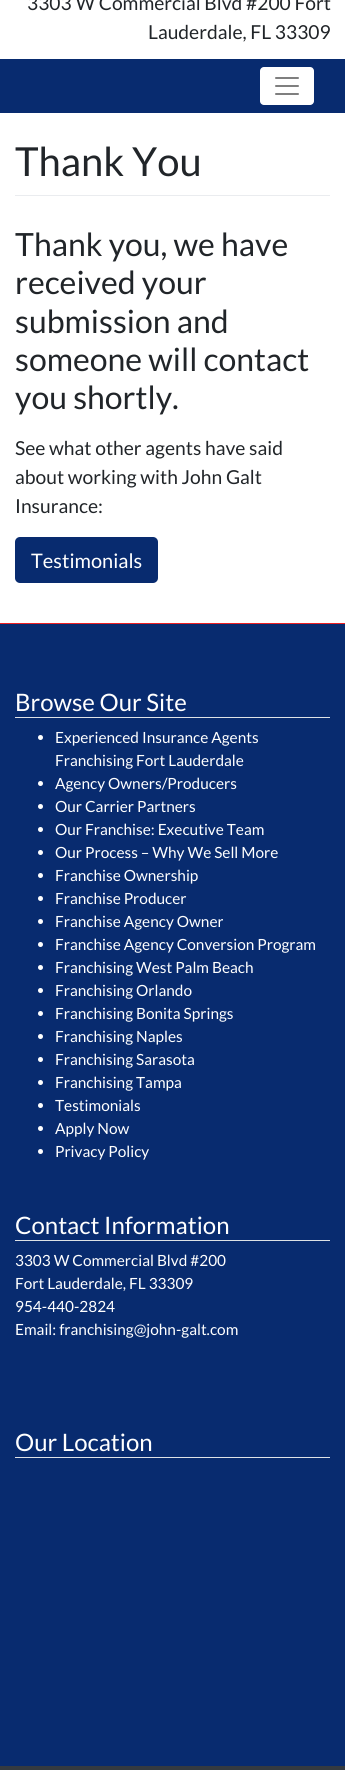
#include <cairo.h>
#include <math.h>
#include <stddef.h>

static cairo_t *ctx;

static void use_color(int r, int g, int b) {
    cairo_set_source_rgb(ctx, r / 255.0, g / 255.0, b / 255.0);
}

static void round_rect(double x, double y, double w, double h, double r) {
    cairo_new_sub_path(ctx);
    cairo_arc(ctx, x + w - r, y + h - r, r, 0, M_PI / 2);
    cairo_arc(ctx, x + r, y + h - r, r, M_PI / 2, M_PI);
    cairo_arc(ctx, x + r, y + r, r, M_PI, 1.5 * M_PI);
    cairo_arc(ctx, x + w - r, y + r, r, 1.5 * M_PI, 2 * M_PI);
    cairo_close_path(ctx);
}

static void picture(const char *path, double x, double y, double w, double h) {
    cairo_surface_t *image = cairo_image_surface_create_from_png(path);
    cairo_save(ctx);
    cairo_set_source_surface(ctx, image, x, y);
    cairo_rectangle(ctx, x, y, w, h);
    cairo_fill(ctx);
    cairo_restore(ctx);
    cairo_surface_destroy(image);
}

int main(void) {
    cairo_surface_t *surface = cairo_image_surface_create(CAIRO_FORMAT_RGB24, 345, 1770);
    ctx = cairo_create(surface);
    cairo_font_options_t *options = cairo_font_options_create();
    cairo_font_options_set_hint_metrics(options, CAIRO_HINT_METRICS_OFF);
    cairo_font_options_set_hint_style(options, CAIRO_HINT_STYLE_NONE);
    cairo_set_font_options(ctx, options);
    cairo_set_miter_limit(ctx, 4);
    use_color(255, 255, 255);
    cairo_paint(ctx);
    cairo_select_font_face(ctx, "Lato", CAIRO_FONT_SLANT_NORMAL, CAIRO_FONT_WEIGHT_NORMAL);
    cairo_set_font_size(ctx, 19.25);
    use_color(33, 37, 41);
    cairo_move_to(ctx, 27, 10);
    cairo_show_text(ctx, "3303 W Commercial Blvd #200 Fort");
    cairo_move_to(ctx, 148, 39);
    cairo_show_text(ctx, "Lauderdale, FL 33309");
    use_color(8, 43, 111);
    cairo_rectangle(ctx, 0, 59, 345, 54);
    cairo_fill(ctx);
    use_color(255, 255, 255);
    round_rect(260, 67, 54, 38, 4);
    cairo_fill(ctx);
    picture("img1.png", 275, 77, 24, 18);
    use_color(234, 236, 239);
    cairo_rectangle(ctx, 15, 195, 315, 1);
    cairo_fill(ctx);
    cairo_set_font_size(ctx, 40);
    use_color(33, 37, 41);
    cairo_move_to(ctx, 15, 176);
    cairo_show_text(ctx, "Thank You");
    cairo_set_font_size(ctx, 32);
    cairo_move_to(ctx, 15, 256);
    cairo_show_text(ctx, "Thank you, we have");
    cairo_move_to(ctx, 15, 294);
    cairo_show_text(ctx, "received your");
    cairo_move_to(ctx, 15, 333);
    cairo_show_text(ctx, "submission and");
    cairo_move_to(ctx, 15, 371);
    cairo_show_text(ctx, "someone will contact");
    cairo_move_to(ctx, 15, 409);
    cairo_show_text(ctx, "you shortly.");
    cairo_set_font_size(ctx, 19.25);
    cairo_move_to(ctx, 15, 455);
    cairo_show_text(ctx, "See what other agents have said");
    cairo_move_to(ctx, 15, 484);
    cairo_show_text(ctx, "about working with John Galt");
    cairo_move_to(ctx, 15, 513);
    cairo_show_text(ctx, "Insurance:");
    use_color(8, 43, 111);
    round_rect(15, 537, 143, 46, 5);
    cairo_fill(ctx);
    cairo_set_font_size(ctx, 20);
    use_color(255, 255, 255);
    cairo_move_to(ctx, 31, 568);
    cairo_show_text(ctx, "Testimonials");
    use_color(8, 43, 111);
    cairo_rectangle(ctx, 0, 624, 345, 1142);
    cairo_fill(ctx);
    use_color(237, 32, 35);
    cairo_rectangle(ctx, 0, 623, 345, 1);
    cairo_fill(ctx);
    use_color(222, 226, 230);
    cairo_rectangle(ctx, 15, 717, 315, 1);
    cairo_fill(ctx);
    cairo_set_font_size(ctx, 24);
    use_color(255, 255, 255);
    cairo_move_to(ctx, 15, 711);
    cairo_show_text(ctx, "Browse Our Site");
    cairo_new_path(ctx);
    cairo_arc(ctx, 40.5, 737.5, 2.5, 0, 2 * M_PI);
    cairo_fill(ctx);
    cairo_set_font_size(ctx, 15.4);
    cairo_move_to(ctx, 55, 743);
    cairo_show_text(ctx, "Experienced Insurance Agents");
    cairo_move_to(ctx, 55, 766);
    cairo_show_text(ctx, "Franchising Fort Lauderdale");
    cairo_new_path(ctx);
    cairo_arc(ctx, 40.5, 783.5, 2.5, 0, 2 * M_PI);
    cairo_fill(ctx);
    cairo_move_to(ctx, 55, 789);
    cairo_show_text(ctx, "Agency Owners/Producers");
    cairo_new_path(ctx);
    cairo_arc(ctx, 40.5, 806.5, 2.5, 0, 2 * M_PI);
    cairo_fill(ctx);
    cairo_move_to(ctx, 55, 812);
    cairo_show_text(ctx, "Our Carrier Partners");
    cairo_new_path(ctx);
    cairo_arc(ctx, 40.5, 829.5, 2.5, 0, 2 * M_PI);
    cairo_fill(ctx);
    cairo_move_to(ctx, 55, 835);
    cairo_show_text(ctx, "Our Franchise: Executive Team");
    cairo_new_path(ctx);
    cairo_arc(ctx, 40.5, 852.5, 2.5, 0, 2 * M_PI);
    cairo_fill(ctx);
    cairo_move_to(ctx, 55, 858);
    cairo_show_text(ctx, "Our Process – Why We Sell More");
    cairo_new_path(ctx);
    cairo_arc(ctx, 40.5, 875.5, 2.5, 0, 2 * M_PI);
    cairo_fill(ctx);
    cairo_move_to(ctx, 55, 881);
    cairo_show_text(ctx, "Franchise Ownership");
    cairo_new_path(ctx);
    cairo_arc(ctx, 40.5, 898.5, 2.5, 0, 2 * M_PI);
    cairo_fill(ctx);
    cairo_move_to(ctx, 55, 904);
    cairo_show_text(ctx, "Franchise Producer");
    cairo_new_path(ctx);
    cairo_arc(ctx, 40.5, 921.5, 2.5, 0, 2 * M_PI);
    cairo_fill(ctx);
    cairo_move_to(ctx, 55, 927);
    cairo_show_text(ctx, "Franchise Agency Owner");
    cairo_new_path(ctx);
    cairo_arc(ctx, 40.5, 944.5, 2.5, 0, 2 * M_PI);
    cairo_fill(ctx);
    cairo_move_to(ctx, 55, 950);
    cairo_show_text(ctx, "Franchise Agency Conversion Program");
    cairo_new_path(ctx);
    cairo_arc(ctx, 40.5, 967.5, 2.5, 0, 2 * M_PI);
    cairo_fill(ctx);
    cairo_move_to(ctx, 55, 973);
    cairo_show_text(ctx, "Franchising West Palm Beach");
    cairo_new_path(ctx);
    cairo_arc(ctx, 40.5, 990.5, 2.5, 0, 2 * M_PI);
    cairo_fill(ctx);
    cairo_move_to(ctx, 55, 996);
    cairo_show_text(ctx, "Franchising Orlando");
    cairo_new_path(ctx);
    cairo_arc(ctx, 40.5, 1013.5, 2.5, 0, 2 * M_PI);
    cairo_fill(ctx);
    cairo_move_to(ctx, 55, 1019);
    cairo_show_text(ctx, "Franchising Bonita Springs");
    cairo_new_path(ctx);
    cairo_arc(ctx, 40.5, 1036.5, 2.5, 0, 2 * M_PI);
    cairo_fill(ctx);
    cairo_move_to(ctx, 55, 1042);
    cairo_show_text(ctx, "Franchising Naples");
    cairo_new_path(ctx);
    cairo_arc(ctx, 40.5, 1059.5, 2.5, 0, 2 * M_PI);
    cairo_fill(ctx);
    cairo_move_to(ctx, 55, 1065);
    cairo_show_text(ctx, "Franchising Sarasota");
    cairo_new_path(ctx);
    cairo_arc(ctx, 40.5, 1082.5, 2.5, 0, 2 * M_PI);
    cairo_fill(ctx);
    cairo_move_to(ctx, 55, 1088);
    cairo_show_text(ctx, "Franchising Tampa");
    cairo_new_path(ctx);
    cairo_arc(ctx, 40.5, 1105.5, 2.5, 0, 2 * M_PI);
    cairo_fill(ctx);
    cairo_move_to(ctx, 55, 1111);
    cairo_show_text(ctx, "Testimonials");
    cairo_new_path(ctx);
    cairo_arc(ctx, 40.5, 1128.5, 2.5, 0, 2 * M_PI);
    cairo_fill(ctx);
    cairo_move_to(ctx, 55, 1134);
    cairo_show_text(ctx, "Apply Now");
    cairo_new_path(ctx);
    cairo_arc(ctx, 40.5, 1151.5, 2.5, 0, 2 * M_PI);
    cairo_fill(ctx);
    cairo_move_to(ctx, 55, 1157);
    cairo_show_text(ctx, "Privacy Policy");
    use_color(222, 226, 230);
    cairo_rectangle(ctx, 15, 1240, 315, 1);
    cairo_fill(ctx);
    cairo_set_font_size(ctx, 24);
    use_color(255, 255, 255);
    cairo_move_to(ctx, 15, 1234);
    cairo_show_text(ctx, "Contact Information");
    cairo_set_font_size(ctx, 15.4);
    cairo_move_to(ctx, 15, 1266);
    cairo_show_text(ctx, "3303 W Commercial Blvd #200");
    cairo_move_to(ctx, 15, 1289);
    cairo_show_text(ctx, "Fort Lauderdale, FL 33309");
    cairo_move_to(ctx, 15, 1312);
    cairo_show_text(ctx, "954-440-2824");
    cairo_move_to(ctx, 15, 1335);
    cairo_show_text(ctx, "Email: franchising@john-galt.com");
    use_color(222, 226, 230);
    cairo_rectangle(ctx, 15, 1457, 315, 1);
    cairo_fill(ctx);
    cairo_set_font_size(ctx, 24);
    use_color(255, 255, 255);
    cairo_move_to(ctx, 15, 1451);
    cairo_show_text(ctx, "Our Location");
    use_color(52, 58, 64);
    cairo_rectangle(ctx, 0, 1766, 345, 4);
    cairo_fill(ctx);
    cairo_surface_write_to_png(surface, "result.png");
    cairo_font_options_destroy(options);
    cairo_destroy(ctx);
    cairo_surface_destroy(surface);
    return 0;
}
